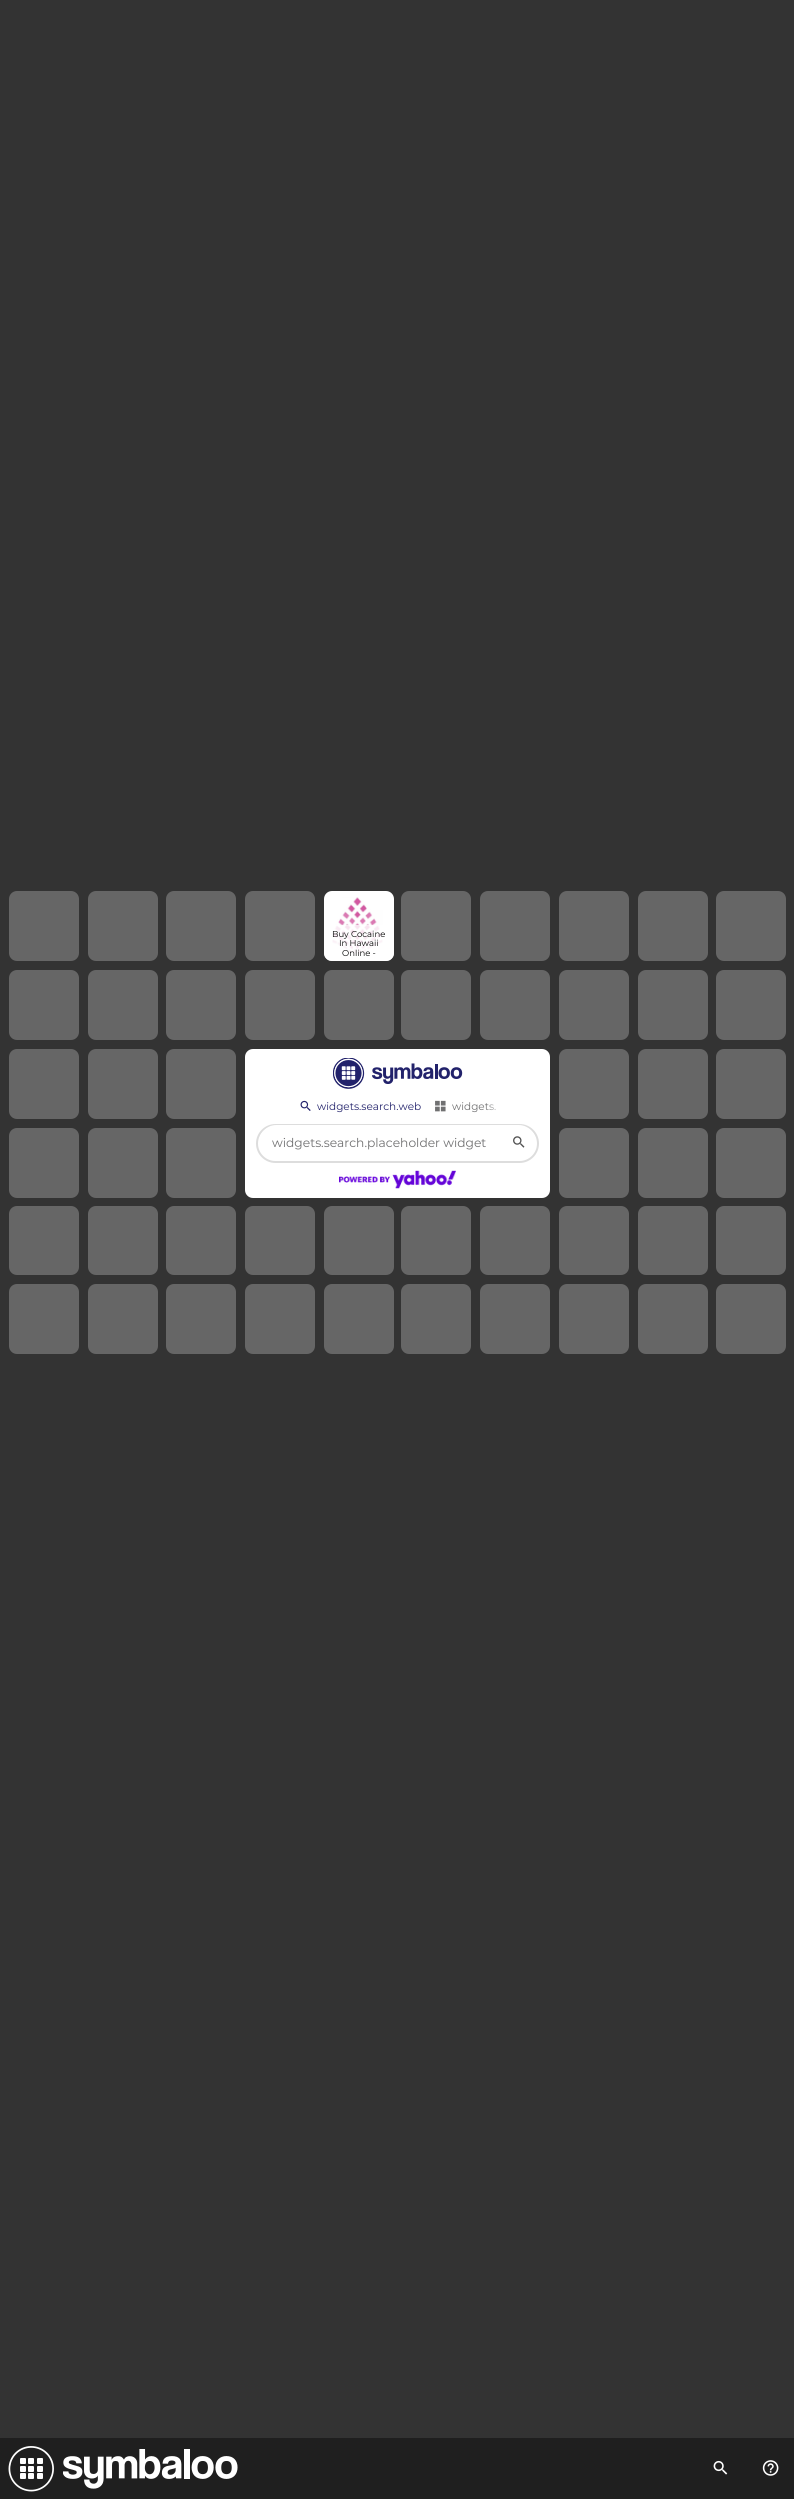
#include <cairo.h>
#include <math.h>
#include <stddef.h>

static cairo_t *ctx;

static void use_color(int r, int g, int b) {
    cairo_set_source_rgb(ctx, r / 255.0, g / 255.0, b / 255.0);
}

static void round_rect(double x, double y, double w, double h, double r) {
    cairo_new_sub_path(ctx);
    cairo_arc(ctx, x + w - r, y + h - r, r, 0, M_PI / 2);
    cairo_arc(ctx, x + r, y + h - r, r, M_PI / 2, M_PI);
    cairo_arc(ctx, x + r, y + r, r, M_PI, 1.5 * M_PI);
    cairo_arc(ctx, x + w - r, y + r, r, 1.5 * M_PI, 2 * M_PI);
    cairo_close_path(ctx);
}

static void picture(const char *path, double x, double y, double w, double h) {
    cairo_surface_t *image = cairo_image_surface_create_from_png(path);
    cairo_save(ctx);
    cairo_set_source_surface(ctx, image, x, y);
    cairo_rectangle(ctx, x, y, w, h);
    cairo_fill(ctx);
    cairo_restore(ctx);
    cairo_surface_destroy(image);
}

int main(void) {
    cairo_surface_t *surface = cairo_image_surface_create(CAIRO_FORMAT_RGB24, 794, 2499);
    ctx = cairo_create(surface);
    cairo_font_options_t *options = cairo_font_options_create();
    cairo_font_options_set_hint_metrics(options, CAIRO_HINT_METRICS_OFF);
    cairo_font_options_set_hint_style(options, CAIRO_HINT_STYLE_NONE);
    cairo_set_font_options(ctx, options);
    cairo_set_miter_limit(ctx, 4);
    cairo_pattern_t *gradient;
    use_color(51, 51, 51);
    cairo_paint(ctx);
    use_color(102, 102, 102);
    round_rect(9, 891, 70, 70, 8);
    cairo_fill(ctx);
    round_rect(88, 891, 70, 70, 8);
    cairo_fill(ctx);
    round_rect(166, 891, 70, 70, 8);
    cairo_fill(ctx);
    round_rect(245, 891, 70, 70, 8);
    cairo_fill(ctx);
    use_color(255, 255, 255);
    round_rect(324, 891, 70, 70, 8);
    cairo_fill(ctx);
    picture("img1.png", 332, 897, 51, 58);
    cairo_set_source_rgba(ctx, 1, 1, 1, 0.8);
    cairo_new_path(ctx);
    cairo_move_to(ctx, 324, 925);
    cairo_line_to(ctx, 394, 925);
    cairo_line_to(ctx, 394, 953);
    cairo_curve_to(ctx, 394, 957.5, 390.5, 961, 386, 961);
    cairo_line_to(ctx, 332, 961);
    cairo_curve_to(ctx, 327.5, 961, 324, 957.5, 324, 953);
    cairo_close_path(ctx);
    cairo_fill(ctx);
    cairo_select_font_face(ctx, "Montserrat", CAIRO_FONT_SLANT_NORMAL, CAIRO_FONT_WEIGHT_NORMAL);
    cairo_set_font_size(ctx, 8.5);
    use_color(0, 0, 0);
    cairo_move_to(ctx, 332, 937);
    cairo_show_text(ctx, "Buy Cocaine");
    cairo_move_to(ctx, 339, 946);
    cairo_show_text(ctx, "In Hawaii");
    cairo_move_to(ctx, 342, 956);
    cairo_show_text(ctx, "Online -");
    use_color(102, 102, 102);
    round_rect(401, 891, 70, 70, 8);
    cairo_fill(ctx);
    round_rect(480, 891, 70, 70, 8);
    cairo_fill(ctx);
    round_rect(559, 891, 70, 70, 8);
    cairo_fill(ctx);
    round_rect(638, 891, 70, 70, 8);
    cairo_fill(ctx);
    round_rect(716, 891, 70, 70, 8);
    cairo_fill(ctx);
    round_rect(9, 970, 70, 70, 8);
    cairo_fill(ctx);
    round_rect(88, 970, 70, 70, 8);
    cairo_fill(ctx);
    round_rect(166, 970, 70, 70, 8);
    cairo_fill(ctx);
    round_rect(245, 970, 70, 70, 8);
    cairo_fill(ctx);
    round_rect(324, 970, 70, 70, 8);
    cairo_fill(ctx);
    round_rect(401, 970, 70, 70, 8);
    cairo_fill(ctx);
    round_rect(480, 970, 70, 70, 8);
    cairo_fill(ctx);
    round_rect(559, 970, 70, 70, 8);
    cairo_fill(ctx);
    round_rect(638, 970, 70, 70, 8);
    cairo_fill(ctx);
    round_rect(716, 970, 70, 70, 8);
    cairo_fill(ctx);
    round_rect(9, 1049, 70, 70, 8);
    cairo_fill(ctx);
    round_rect(88, 1049, 70, 70, 8);
    cairo_fill(ctx);
    round_rect(166, 1049, 70, 70, 8);
    cairo_fill(ctx);
    round_rect(559, 1049, 70, 70, 8);
    cairo_fill(ctx);
    round_rect(638, 1049, 70, 70, 8);
    cairo_fill(ctx);
    round_rect(716, 1049, 70, 70, 8);
    cairo_fill(ctx);
    round_rect(9, 1128, 70, 70, 8);
    cairo_fill(ctx);
    round_rect(88, 1128, 70, 70, 8);
    cairo_fill(ctx);
    round_rect(166, 1128, 70, 70, 8);
    cairo_fill(ctx);
    use_color(255, 255, 255);
    round_rect(245, 1049, 305, 149, 8);
    cairo_fill(ctx);
    picture("img2.png", 333, 1058, 130, 31);
    picture("img3.png", 300, 1100, 11, 11);
    cairo_set_font_size(ctx, 10.5);
    use_color(34, 34, 107);
    cairo_move_to(ctx, 317, 1110);
    cairo_show_text(ctx, "widgets.search.web");
    picture("img4.png", 435, 1100, 11, 12);
    use_color(112, 112, 113);
    cairo_move_to(ctx, 452, 1110);
    cairo_show_text(ctx, "widgets.");
    gradient = cairo_pattern_create_linear(486, 1106, 503, 1106);
    cairo_pattern_add_color_stop_rgba(gradient, 0, 1, 1, 1, 0);
    cairo_pattern_add_color_stop_rgba(gradient, 1, 1, 1, 1, 1);
    cairo_set_source(ctx, gradient);
    cairo_pattern_destroy(gradient);
    cairo_rectangle(ctx, 486, 1104, 10, 6);
    cairo_fill(ctx);
    round_rect(257, 1125, 281, 37, 18.5);
    use_color(221, 221, 221);
    cairo_stroke(ctx);
    use_color(255, 255, 255);
    round_rect(259, 1125, 277, 35, 17.5);
    cairo_fill(ctx);
    cairo_set_font_size(ctx, 12.25);
    use_color(112, 112, 113);
    cairo_move_to(ctx, 272, 1147);
    cairo_show_text(ctx, "widgets.search.placeholder widget");
    picture("img5.png", 513, 1136, 12, 12);
    picture("img6.png", 339, 1170, 117, 19);
    use_color(102, 102, 102);
    round_rect(559, 1128, 70, 70, 8);
    cairo_fill(ctx);
    round_rect(638, 1128, 70, 70, 8);
    cairo_fill(ctx);
    round_rect(716, 1128, 70, 70, 8);
    cairo_fill(ctx);
    round_rect(9, 1206, 70, 69, 8);
    cairo_fill(ctx);
    round_rect(88, 1206, 70, 69, 8);
    cairo_fill(ctx);
    round_rect(166, 1206, 70, 69, 8);
    cairo_fill(ctx);
    round_rect(245, 1206, 70, 69, 8);
    cairo_fill(ctx);
    round_rect(324, 1206, 70, 69, 8);
    cairo_fill(ctx);
    round_rect(401, 1206, 70, 69, 8);
    cairo_fill(ctx);
    round_rect(480, 1206, 70, 69, 8);
    cairo_fill(ctx);
    round_rect(559, 1206, 70, 69, 8);
    cairo_fill(ctx);
    round_rect(638, 1206, 70, 69, 8);
    cairo_fill(ctx);
    round_rect(716, 1206, 70, 69, 8);
    cairo_fill(ctx);
    round_rect(9, 1284, 70, 70, 8);
    cairo_fill(ctx);
    round_rect(88, 1284, 70, 70, 8);
    cairo_fill(ctx);
    round_rect(166, 1284, 70, 70, 8);
    cairo_fill(ctx);
    round_rect(245, 1284, 70, 70, 8);
    cairo_fill(ctx);
    round_rect(324, 1284, 70, 70, 8);
    cairo_fill(ctx);
    round_rect(401, 1284, 70, 70, 8);
    cairo_fill(ctx);
    round_rect(480, 1284, 70, 70, 8);
    cairo_fill(ctx);
    round_rect(559, 1284, 70, 70, 8);
    cairo_fill(ctx);
    round_rect(638, 1284, 70, 70, 8);
    cairo_fill(ctx);
    round_rect(716, 1284, 70, 70, 8);
    cairo_fill(ctx);
    use_color(31, 31, 31);
    cairo_rectangle(ctx, 0, 2438, 794, 61);
    cairo_fill(ctx);
    picture("img7.png", 8, 2446, 46, 46);
    picture("img8.png", 63, 2449, 175, 40);
    picture("img9.png", 713, 2460, 15, 15);
    picture("img10.png", 762, 2460, 17, 16);
    cairo_surface_write_to_png(surface, "result.png");
    cairo_font_options_destroy(options);
    cairo_destroy(ctx);
    cairo_surface_destroy(surface);
    return 0;
}
